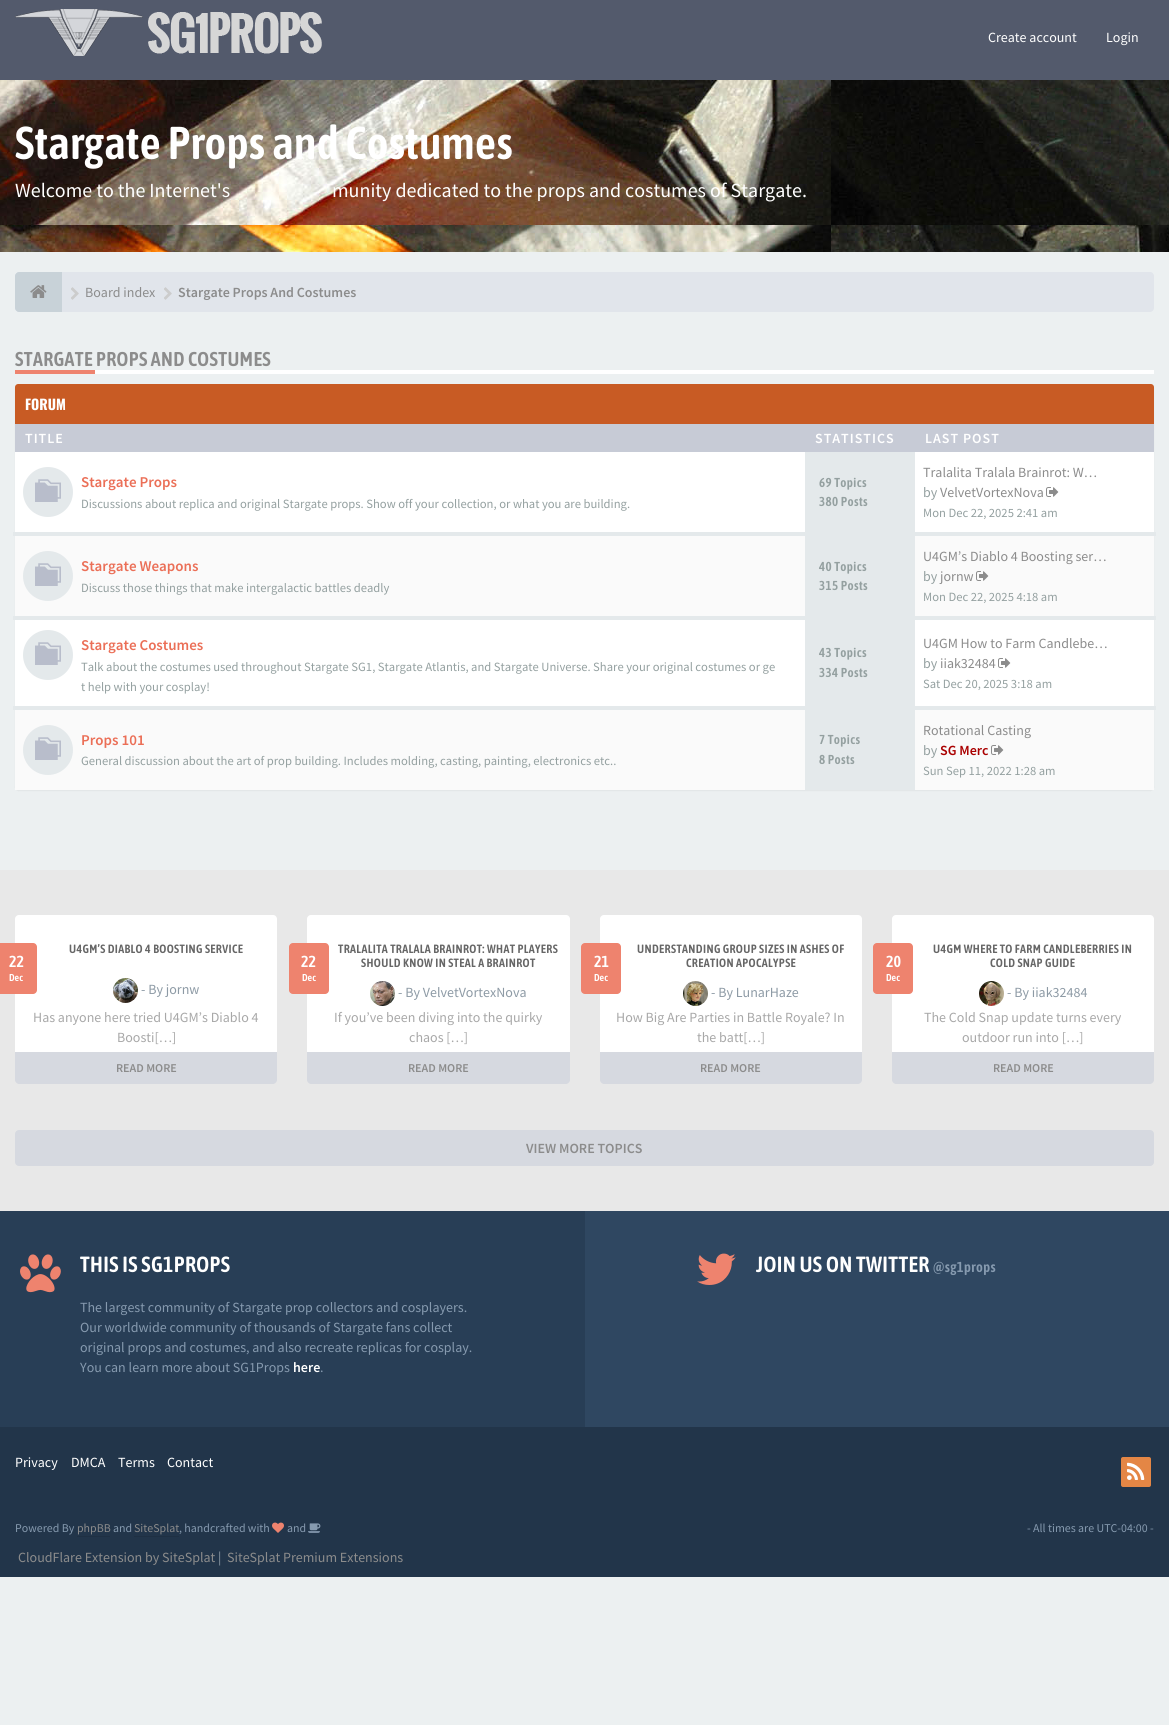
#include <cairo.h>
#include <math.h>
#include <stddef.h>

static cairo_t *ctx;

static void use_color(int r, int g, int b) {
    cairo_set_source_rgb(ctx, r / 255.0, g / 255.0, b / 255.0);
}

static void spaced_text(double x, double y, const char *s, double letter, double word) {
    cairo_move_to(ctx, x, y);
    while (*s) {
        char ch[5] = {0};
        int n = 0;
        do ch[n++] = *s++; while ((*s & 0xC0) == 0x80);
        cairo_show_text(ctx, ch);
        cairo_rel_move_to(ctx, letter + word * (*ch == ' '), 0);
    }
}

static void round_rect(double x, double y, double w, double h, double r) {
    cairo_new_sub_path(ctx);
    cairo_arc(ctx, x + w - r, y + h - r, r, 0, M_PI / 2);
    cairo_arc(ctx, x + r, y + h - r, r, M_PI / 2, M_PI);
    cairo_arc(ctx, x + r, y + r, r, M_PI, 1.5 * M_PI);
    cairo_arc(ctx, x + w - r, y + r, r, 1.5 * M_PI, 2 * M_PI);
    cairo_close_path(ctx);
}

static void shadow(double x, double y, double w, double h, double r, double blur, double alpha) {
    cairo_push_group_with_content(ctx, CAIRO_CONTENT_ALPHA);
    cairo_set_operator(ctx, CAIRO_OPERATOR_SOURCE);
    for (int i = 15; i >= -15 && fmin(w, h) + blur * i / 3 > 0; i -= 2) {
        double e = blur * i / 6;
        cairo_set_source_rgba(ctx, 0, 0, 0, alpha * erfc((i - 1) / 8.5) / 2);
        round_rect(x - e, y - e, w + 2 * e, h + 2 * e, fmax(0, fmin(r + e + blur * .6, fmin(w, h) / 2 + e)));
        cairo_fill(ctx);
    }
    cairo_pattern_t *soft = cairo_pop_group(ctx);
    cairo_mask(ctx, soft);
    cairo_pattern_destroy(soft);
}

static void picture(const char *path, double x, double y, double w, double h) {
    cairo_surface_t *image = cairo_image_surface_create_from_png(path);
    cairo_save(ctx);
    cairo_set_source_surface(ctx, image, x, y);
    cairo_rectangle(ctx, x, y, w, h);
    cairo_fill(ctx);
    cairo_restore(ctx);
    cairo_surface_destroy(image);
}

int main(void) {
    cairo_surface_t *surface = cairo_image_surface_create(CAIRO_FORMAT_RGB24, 1169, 1725);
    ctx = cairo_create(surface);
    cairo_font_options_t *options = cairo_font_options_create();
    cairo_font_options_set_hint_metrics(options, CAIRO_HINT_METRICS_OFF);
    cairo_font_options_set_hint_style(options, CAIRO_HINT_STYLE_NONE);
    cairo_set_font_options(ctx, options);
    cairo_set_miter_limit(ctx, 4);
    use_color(236, 240, 241);
    cairo_paint(ctx);
    use_color(83, 90, 108);
    cairo_rectangle(ctx, 0, 0, 1169, 80);
    cairo_fill(ctx);
    picture("img1.png", 15, 9, 307, 47);
    cairo_select_font_face(ctx, "Source Sans Pro", CAIRO_FONT_SLANT_NORMAL, CAIRO_FONT_WEIGHT_NORMAL);
    cairo_set_font_size(ctx, 14);
    use_color(255, 255, 255);
    cairo_move_to(ctx, 988, 42);
    cairo_show_text(ctx, "Create account");
    cairo_move_to(ctx, 1106, 42);
    cairo_show_text(ctx, "Login");
    picture("img2.png", 0, 80, 1169, 172);
    cairo_select_font_face(ctx, "Asap Condensed SemiBold", CAIRO_FONT_SLANT_NORMAL, CAIRO_FONT_WEIGHT_NORMAL);
    cairo_set_font_size(ctx, 46);
    spaced_text(15, 159, "Stargate Props and Costumes", 0.4, 0);
    cairo_select_font_face(ctx, "Source Sans Pro", CAIRO_FONT_SLANT_NORMAL, CAIRO_FONT_WEIGHT_NORMAL);
    cairo_set_font_size(ctx, 20);
    cairo_move_to(ctx, 15, 197);
    cairo_show_text(ctx, "Welcome to the Internet's");
    cairo_move_to(ctx, 332, 197);
    cairo_show_text(ctx, "munity dedicated to the props and costumes of Stargate.");
    use_color(225, 229, 235);
    round_rect(15, 272, 1139, 40, 4);
    cairo_fill(ctx);
    use_color(200, 210, 216);
    cairo_new_path(ctx);
    cairo_move_to(ctx, 19, 272);
    cairo_line_to(ctx, 62, 272);
    cairo_line_to(ctx, 62, 312);
    cairo_line_to(ctx, 19, 312);
    cairo_curve_to(ctx, 17, 312, 15, 310, 15, 308);
    cairo_line_to(ctx, 15, 276);
    cairo_curve_to(ctx, 15, 274, 17, 272, 19, 272);
    cairo_close_path(ctx);
    cairo_fill(ctx);
    picture("img3.png", 30, 285, 17, 13);
    picture("img4.png", 71, 287, 8, 13);
    cairo_set_font_size(ctx, 14);
    use_color(140, 140, 140);
    cairo_move_to(ctx, 85, 297);
    cairo_show_text(ctx, "Board index");
    picture("img4.png", 164, 287, 8, 13);
    cairo_select_font_face(ctx, "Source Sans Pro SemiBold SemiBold", CAIRO_FONT_SLANT_NORMAL, CAIRO_FONT_WEIGHT_NORMAL);
    cairo_move_to(ctx, 178, 297);
    cairo_show_text(ctx, "Stargate Props And Costumes");
    use_color(255, 255, 255);
    cairo_rectangle(ctx, 95, 370, 1059, 4);
    cairo_fill(ctx);
    cairo_select_font_face(ctx, "Asap Condensed SemiBold", CAIRO_FONT_SLANT_NORMAL, CAIRO_FONT_WEIGHT_NORMAL);
    cairo_set_font_size(ctx, 20);
    use_color(140, 140, 140);
    spaced_text(15, 366, "STARGATE PROPS AND COSTUMES", 0.4, 0);
    use_color(238, 131, 110);
    cairo_rectangle(ctx, 15, 370, 80, 4);
    cairo_fill(ctx);
    use_color(0, 0, 0);
    shadow(15, 385, 1139, 406, 4, 0.5, 0.05);
    use_color(200, 91, 36);
    cairo_new_path(ctx);
    cairo_move_to(ctx, 18, 384);
    cairo_line_to(ctx, 1151, 384);
    cairo_curve_to(ctx, 1152.5, 384, 1154, 385.5, 1154, 387);
    cairo_line_to(ctx, 1154, 424);
    cairo_line_to(ctx, 15, 424);
    cairo_line_to(ctx, 15, 387);
    cairo_curve_to(ctx, 15, 385.5, 16.5, 384, 18, 384);
    cairo_close_path(ctx);
    cairo_fill(ctx);
    cairo_select_font_face(ctx, "Oswald", CAIRO_FONT_SLANT_NORMAL, CAIRO_FONT_WEIGHT_BOLD);
    cairo_set_font_size(ctx, 14);
    use_color(255, 255, 255);
    cairo_move_to(ctx, 25, 410);
    cairo_show_text(ctx, "FORUM");
    use_color(199, 203, 214);
    cairo_rectangle(ctx, 15, 424, 1139, 28);
    cairo_fill(ctx);
    cairo_select_font_face(ctx, "Source Sans Pro SemiBold SemiBold", CAIRO_FONT_SLANT_NORMAL, CAIRO_FONT_WEIGHT_NORMAL);
    use_color(255, 255, 255);
    spaced_text(25, 443, "TITLE", 1, 0);
    spaced_text(815, 443, "STATISTICS", 1, 0);
    spaced_text(925, 443, "LAST POST", 1, 0);
    cairo_rectangle(ctx, 15, 452, 790, 80);
    cairo_fill(ctx);
    use_color(228, 233, 235);
    cairo_arc(ctx, 48, 492, 25, 0, 2 * M_PI);
    cairo_fill(ctx);
    picture("img5.png", 35, 479, 26, 23);
    cairo_set_font_size(ctx, 15);
    use_color(235, 111, 87);
    cairo_move_to(ctx, 81, 487);
    cairo_show_text(ctx, "Stargate Props");
    cairo_select_font_face(ctx, "Source Sans Pro", CAIRO_FONT_SLANT_NORMAL, CAIRO_FONT_WEIGHT_NORMAL);
    cairo_set_font_size(ctx, 12.6);
    use_color(148, 160, 160);
    cairo_move_to(ctx, 81, 508);
    cairo_show_text(ctx, "Discussions about replica and original Stargate props. Show off your collection, or what you are building.");
    use_color(228, 233, 235);
    cairo_rectangle(ctx, 805, 452, 110, 80);
    cairo_fill(ctx);
    cairo_select_font_face(ctx, "Asap Condensed SemiBold", CAIRO_FONT_SLANT_NORMAL, CAIRO_FONT_WEIGHT_NORMAL);
    cairo_set_font_size(ctx, 13);
    use_color(148, 160, 160);
    spaced_text(819, 487, "69 Topics", 0.4, 0);
    spaced_text(819, 506, "380 Posts", 0.4, 0);
    use_color(255, 255, 255);
    cairo_rectangle(ctx, 915, 452, 239, 80);
    cairo_fill(ctx);
    cairo_select_font_face(ctx, "Source Sans Pro", CAIRO_FONT_SLANT_NORMAL, CAIRO_FONT_WEIGHT_NORMAL);
    cairo_set_font_size(ctx, 14);
    use_color(140, 140, 140);
    cairo_move_to(ctx, 923, 477);
    cairo_show_text(ctx, "Tralalita Tralala Brainrot: W…");
    use_color(148, 160, 160);
    cairo_move_to(ctx, 923, 497);
    cairo_show_text(ctx, "by");
    use_color(140, 140, 140);
    cairo_move_to(ctx, 940, 497);
    cairo_show_text(ctx, "VelvetVortexNova");
    picture("img6.png", 1046, 487, 13, 10);
    cairo_set_font_size(ctx, 12.6);
    use_color(148, 160, 160);
    cairo_move_to(ctx, 923, 517);
    cairo_show_text(ctx, "Mon Dec 22, 2025 2:41 am");
    use_color(250, 250, 250);
    cairo_rectangle(ctx, 15, 536, 790, 80);
    cairo_fill(ctx);
    use_color(228, 233, 235);
    cairo_arc(ctx, 48, 576, 25, 0, 2 * M_PI);
    cairo_fill(ctx);
    picture("img5.png", 35, 563, 26, 23);
    cairo_select_font_face(ctx, "Source Sans Pro SemiBold SemiBold", CAIRO_FONT_SLANT_NORMAL, CAIRO_FONT_WEIGHT_NORMAL);
    cairo_set_font_size(ctx, 15);
    use_color(235, 111, 87);
    cairo_move_to(ctx, 81, 571);
    cairo_show_text(ctx, "Stargate Weapons");
    cairo_select_font_face(ctx, "Source Sans Pro", CAIRO_FONT_SLANT_NORMAL, CAIRO_FONT_WEIGHT_NORMAL);
    cairo_set_font_size(ctx, 12.6);
    use_color(148, 160, 160);
    cairo_move_to(ctx, 81, 592);
    cairo_show_text(ctx, "Discuss those things that make intergalactic battles deadly");
    use_color(228, 233, 235);
    cairo_rectangle(ctx, 805, 536, 110, 80);
    cairo_fill(ctx);
    cairo_select_font_face(ctx, "Asap Condensed SemiBold", CAIRO_FONT_SLANT_NORMAL, CAIRO_FONT_WEIGHT_NORMAL);
    cairo_set_font_size(ctx, 13);
    use_color(148, 160, 160);
    spaced_text(819, 571, "40 Topics", 0.4, 0);
    spaced_text(819, 590, "315 Posts", 0.4, 0);
    use_color(250, 250, 250);
    cairo_rectangle(ctx, 915, 536, 239, 80);
    cairo_fill(ctx);
    use_color(228, 233, 235);
    cairo_rectangle(ctx, 13, 532, 1143, 4);
    cairo_fill(ctx);
    cairo_select_font_face(ctx, "Source Sans Pro", CAIRO_FONT_SLANT_NORMAL, CAIRO_FONT_WEIGHT_NORMAL);
    cairo_set_font_size(ctx, 14);
    use_color(140, 140, 140);
    cairo_move_to(ctx, 923, 561);
    cairo_show_text(ctx, "U4GM’s Diablo 4 Boosting ser…");
    use_color(148, 160, 160);
    cairo_move_to(ctx, 923, 581);
    cairo_show_text(ctx, "by");
    use_color(140, 140, 140);
    cairo_move_to(ctx, 940, 581);
    cairo_show_text(ctx, "jornw");
    picture("img7.png", 976, 571, 13, 10);
    cairo_set_font_size(ctx, 12.6);
    use_color(148, 160, 160);
    cairo_move_to(ctx, 923, 601);
    cairo_show_text(ctx, "Mon Dec 22, 2025 4:18 am");
    use_color(255, 255, 255);
    cairo_rectangle(ctx, 15, 620, 790, 86);
    cairo_fill(ctx);
    use_color(228, 233, 235);
    cairo_arc(ctx, 48, 655, 25, 0, 2 * M_PI);
    cairo_fill(ctx);
    picture("img5.png", 35, 642, 26, 23);
    cairo_select_font_face(ctx, "Source Sans Pro SemiBold SemiBold", CAIRO_FONT_SLANT_NORMAL, CAIRO_FONT_WEIGHT_NORMAL);
    cairo_set_font_size(ctx, 15);
    use_color(235, 111, 87);
    cairo_move_to(ctx, 81, 650);
    cairo_show_text(ctx, "Stargate Costumes");
    cairo_select_font_face(ctx, "Source Sans Pro", CAIRO_FONT_SLANT_NORMAL, CAIRO_FONT_WEIGHT_NORMAL);
    cairo_set_font_size(ctx, 12.6);
    use_color(148, 160, 160);
    cairo_move_to(ctx, 81, 671);
    cairo_show_text(ctx, "Talk about the costumes used throughout Stargate SG1, Stargate Atlantis, and Stargate Universe. Share your original costumes or ge");
    cairo_move_to(ctx, 81, 691);
    cairo_show_text(ctx, "t help with your cosplay!");
    use_color(228, 233, 235);
    cairo_rectangle(ctx, 805, 620, 110, 86);
    cairo_fill(ctx);
    cairo_select_font_face(ctx, "Asap Condensed SemiBold", CAIRO_FONT_SLANT_NORMAL, CAIRO_FONT_WEIGHT_NORMAL);
    cairo_set_font_size(ctx, 13);
    use_color(148, 160, 160);
    spaced_text(819, 657, "43 Topics", 0.4, 0);
    spaced_text(819, 677, "334 Posts", 0.4, 0);
    use_color(255, 255, 255);
    cairo_rectangle(ctx, 915, 620, 239, 86);
    cairo_fill(ctx);
    use_color(228, 233, 235);
    cairo_rectangle(ctx, 13, 616, 1143, 4);
    cairo_fill(ctx);
    cairo_select_font_face(ctx, "Source Sans Pro", CAIRO_FONT_SLANT_NORMAL, CAIRO_FONT_WEIGHT_NORMAL);
    cairo_set_font_size(ctx, 14);
    use_color(140, 140, 140);
    cairo_move_to(ctx, 923, 648);
    cairo_show_text(ctx, "U4GM How to Farm Candlebe…");
    use_color(148, 160, 160);
    cairo_move_to(ctx, 923, 668);
    cairo_show_text(ctx, "by");
    use_color(140, 140, 140);
    cairo_move_to(ctx, 940, 668);
    cairo_show_text(ctx, "iiak32484");
    picture("img6.png", 998, 658, 13, 10);
    cairo_set_font_size(ctx, 12.6);
    use_color(148, 160, 160);
    cairo_move_to(ctx, 923, 688);
    cairo_show_text(ctx, "Sat Dec 20, 2025 3:18 am");
    use_color(250, 250, 250);
    cairo_rectangle(ctx, 15, 710, 790, 80);
    cairo_fill(ctx);
    use_color(228, 233, 235);
    cairo_arc(ctx, 48, 750, 25, 0, 2 * M_PI);
    cairo_fill(ctx);
    picture("img5.png", 35, 737, 26, 23);
    cairo_select_font_face(ctx, "Source Sans Pro SemiBold SemiBold", CAIRO_FONT_SLANT_NORMAL, CAIRO_FONT_WEIGHT_NORMAL);
    cairo_set_font_size(ctx, 15);
    use_color(235, 111, 87);
    cairo_move_to(ctx, 81, 745);
    cairo_show_text(ctx, "Props 101");
    cairo_select_font_face(ctx, "Source Sans Pro", CAIRO_FONT_SLANT_NORMAL, CAIRO_FONT_WEIGHT_NORMAL);
    cairo_set_font_size(ctx, 12.6);
    use_color(148, 160, 160);
    cairo_move_to(ctx, 81, 765);
    cairo_show_text(ctx, "General discussion about the art of prop building. Includes molding, casting, painting, electronics etc..");
    use_color(228, 233, 235);
    cairo_rectangle(ctx, 805, 710, 110, 80);
    cairo_fill(ctx);
    cairo_select_font_face(ctx, "Asap Condensed SemiBold", CAIRO_FONT_SLANT_NORMAL, CAIRO_FONT_WEIGHT_NORMAL);
    cairo_set_font_size(ctx, 13);
    use_color(148, 160, 160);
    spaced_text(819, 744, "7 Topics", 0.4, 0);
    spaced_text(819, 764, "8 Posts", 0.4, 0);
    use_color(250, 250, 250);
    cairo_rectangle(ctx, 915, 710, 239, 80);
    cairo_fill(ctx);
    use_color(228, 233, 235);
    cairo_rectangle(ctx, 13, 706, 1143, 4);
    cairo_fill(ctx);
    cairo_select_font_face(ctx, "Source Sans Pro", CAIRO_FONT_SLANT_NORMAL, CAIRO_FONT_WEIGHT_NORMAL);
    cairo_set_font_size(ctx, 14);
    use_color(140, 140, 140);
    cairo_move_to(ctx, 923, 735);
    cairo_show_text(ctx, "Rotational Casting");
    use_color(148, 160, 160);
    cairo_move_to(ctx, 923, 755);
    cairo_show_text(ctx, "by");
    cairo_select_font_face(ctx, "Source Sans Pro SemiBold SemiBold", CAIRO_FONT_SLANT_NORMAL, CAIRO_FONT_WEIGHT_NORMAL);
    use_color(170, 0, 0);
    cairo_move_to(ctx, 940, 755);
    cairo_show_text(ctx, "SG Merc");
    picture("img7.png", 991, 745, 13, 10);
    cairo_select_font_face(ctx, "Source Sans Pro", CAIRO_FONT_SLANT_NORMAL, CAIRO_FONT_WEIGHT_NORMAL);
    cairo_set_font_size(ctx, 12.6);
    use_color(148, 160, 160);
    cairo_move_to(ctx, 923, 775);
    cairo_show_text(ctx, "Sun Sep 11, 2022 1:28 am");
    use_color(232, 232, 232);
    cairo_rectangle(ctx, 0, 870, 1169, 341);
    cairo_fill(ctx);
    use_color(255, 255, 255);
    round_rect(15, 915, 262, 160, 4);
    cairo_fill(ctx);
    use_color(238, 131, 110);
    round_rect(-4, 943, 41, 51, 4);
    cairo_fill(ctx);
    cairo_select_font_face(ctx, "Asap Condensed SemiBold", CAIRO_FONT_SLANT_NORMAL, CAIRO_FONT_WEIGHT_NORMAL);
    cairo_set_font_size(ctx, 16);
    use_color(255, 255, 255);
    cairo_move_to(ctx, 9, 967);
    cairo_show_text(ctx, "22");
    cairo_set_font_size(ctx, 10);
    cairo_move_to(ctx, 9, 981);
    cairo_show_text(ctx, "Dec");
    cairo_set_font_size(ctx, 12);
    use_color(102, 102, 102);
    spaced_text(69, 953, "U4GM’S DIABLO 4 BOOSTING SERVICE", 0.4, 0);
    picture("img8.png", 113, 978, 25, 25);
    cairo_select_font_face(ctx, "Source Sans Pro", CAIRO_FONT_SLANT_NORMAL, CAIRO_FONT_WEIGHT_NORMAL);
    cairo_set_font_size(ctx, 14);
    use_color(141, 154, 165);
    cairo_move_to(ctx, 141, 994);
    cairo_show_text(ctx, "- By jornw");
    use_color(168, 168, 168);
    cairo_move_to(ctx, 33, 1022);
    cairo_show_text(ctx, "Has anyone here tried U4GM’s Diablo 4");
    cairo_move_to(ctx, 117, 1042);
    cairo_show_text(ctx, "Boosti[…]");
    use_color(214, 217, 224);
    cairo_new_path(ctx);
    cairo_move_to(ctx, 15, 1052);
    cairo_line_to(ctx, 277, 1052);
    cairo_line_to(ctx, 277, 1080);
    cairo_curve_to(ctx, 277, 1082, 275, 1084, 273, 1084);
    cairo_line_to(ctx, 19, 1084);
    cairo_curve_to(ctx, 17, 1084, 15, 1082, 15, 1080);
    cairo_close_path(ctx);
    cairo_fill(ctx);
    cairo_select_font_face(ctx, "Source Sans Pro SemiBold SemiBold", CAIRO_FONT_SLANT_NORMAL, CAIRO_FONT_WEIGHT_NORMAL);
    cairo_set_font_size(ctx, 12);
    use_color(140, 140, 140);
    cairo_move_to(ctx, 116, 1072);
    cairo_show_text(ctx, "READ MORE");
    use_color(255, 255, 255);
    round_rect(307, 915, 263, 160, 4);
    cairo_fill(ctx);
    use_color(238, 131, 110);
    round_rect(289, 943, 40, 51, 4);
    cairo_fill(ctx);
    cairo_select_font_face(ctx, "Asap Condensed SemiBold", CAIRO_FONT_SLANT_NORMAL, CAIRO_FONT_WEIGHT_NORMAL);
    cairo_set_font_size(ctx, 16);
    use_color(255, 255, 255);
    cairo_move_to(ctx, 301, 967);
    cairo_show_text(ctx, "22");
    cairo_set_font_size(ctx, 10);
    cairo_move_to(ctx, 302, 981);
    cairo_show_text(ctx, "Dec");
    cairo_set_font_size(ctx, 12);
    use_color(102, 102, 102);
    spaced_text(338, 953, "TRALALITA TRALALA BRAINROT: WHAT PLAYERS", 0.4, 0);
    spaced_text(361, 967, "SHOULD KNOW IN STEAL A BRAINROT", 0.4, 0);
    picture("img9.png", 370, 981, 25, 25);
    cairo_select_font_face(ctx, "Source Sans Pro", CAIRO_FONT_SLANT_NORMAL, CAIRO_FONT_WEIGHT_NORMAL);
    cairo_set_font_size(ctx, 14);
    use_color(141, 154, 165);
    cairo_move_to(ctx, 398, 997);
    cairo_show_text(ctx, "- By VelvetVortexNova");
    use_color(168, 168, 168);
    cairo_move_to(ctx, 334, 1022);
    cairo_show_text(ctx, "If you’ve been diving into the quirky");
    cairo_move_to(ctx, 409, 1042);
    cairo_show_text(ctx, "chaos […]");
    use_color(214, 217, 224);
    cairo_new_path(ctx);
    cairo_move_to(ctx, 307, 1052);
    cairo_line_to(ctx, 570, 1052);
    cairo_line_to(ctx, 570, 1080);
    cairo_curve_to(ctx, 570, 1082, 568, 1084, 566, 1084);
    cairo_line_to(ctx, 311, 1084);
    cairo_curve_to(ctx, 309, 1084, 307, 1082, 307, 1080);
    cairo_close_path(ctx);
    cairo_fill(ctx);
    cairo_select_font_face(ctx, "Source Sans Pro SemiBold SemiBold", CAIRO_FONT_SLANT_NORMAL, CAIRO_FONT_WEIGHT_NORMAL);
    cairo_set_font_size(ctx, 12);
    use_color(140, 140, 140);
    cairo_move_to(ctx, 408, 1072);
    cairo_show_text(ctx, "READ MORE");
    use_color(255, 255, 255);
    round_rect(600, 915, 262, 160, 4);
    cairo_fill(ctx);
    use_color(238, 131, 110);
    round_rect(581, 943, 40, 51, 4);
    cairo_fill(ctx);
    cairo_select_font_face(ctx, "Asap Condensed SemiBold", CAIRO_FONT_SLANT_NORMAL, CAIRO_FONT_WEIGHT_NORMAL);
    cairo_set_font_size(ctx, 16);
    use_color(255, 255, 255);
    cairo_move_to(ctx, 594, 967);
    cairo_show_text(ctx, "21");
    cairo_set_font_size(ctx, 10);
    cairo_move_to(ctx, 594, 981);
    cairo_show_text(ctx, "Dec");
    cairo_set_font_size(ctx, 12);
    use_color(102, 102, 102);
    spaced_text(637, 953, "UNDERSTANDING GROUP SIZES IN ASHES OF", 0.4, 0);
    spaced_text(686, 967, "CREATION APOCALYPSE", 0.4, 0);
    picture("img10.png", 683, 981, 25, 25);
    cairo_select_font_face(ctx, "Source Sans Pro", CAIRO_FONT_SLANT_NORMAL, CAIRO_FONT_WEIGHT_NORMAL);
    cairo_set_font_size(ctx, 14);
    use_color(141, 154, 165);
    cairo_move_to(ctx, 711, 997);
    cairo_show_text(ctx, "- By LunarHaze");
    use_color(168, 168, 168);
    cairo_move_to(ctx, 616, 1022);
    cairo_show_text(ctx, "How Big Are Parties in Battle Royale? In");
    cairo_move_to(ctx, 697, 1042);
    cairo_show_text(ctx, "the batt[…]");
    use_color(214, 217, 224);
    cairo_new_path(ctx);
    cairo_move_to(ctx, 600, 1052);
    cairo_line_to(ctx, 862, 1052);
    cairo_line_to(ctx, 862, 1080);
    cairo_curve_to(ctx, 862, 1082, 860, 1084, 858, 1084);
    cairo_line_to(ctx, 604, 1084);
    cairo_curve_to(ctx, 602, 1084, 600, 1082, 600, 1080);
    cairo_close_path(ctx);
    cairo_fill(ctx);
    cairo_select_font_face(ctx, "Source Sans Pro SemiBold SemiBold", CAIRO_FONT_SLANT_NORMAL, CAIRO_FONT_WEIGHT_NORMAL);
    cairo_set_font_size(ctx, 12);
    use_color(140, 140, 140);
    cairo_move_to(ctx, 700, 1072);
    cairo_show_text(ctx, "READ MORE");
    use_color(255, 255, 255);
    round_rect(892, 915, 262, 160, 4);
    cairo_fill(ctx);
    use_color(238, 131, 110);
    round_rect(873, 943, 40, 51, 4);
    cairo_fill(ctx);
    cairo_select_font_face(ctx, "Asap Condensed SemiBold", CAIRO_FONT_SLANT_NORMAL, CAIRO_FONT_WEIGHT_NORMAL);
    cairo_set_font_size(ctx, 16);
    use_color(255, 255, 255);
    cairo_move_to(ctx, 886, 967);
    cairo_show_text(ctx, "20");
    cairo_set_font_size(ctx, 10);
    cairo_move_to(ctx, 886, 981);
    cairo_show_text(ctx, "Dec");
    cairo_set_font_size(ctx, 12);
    use_color(102, 102, 102);
    spaced_text(933, 953, "U4GM WHERE TO FARM CANDLEBERRIES IN", 0.4, 0);
    spaced_text(990, 967, "COLD SNAP GUIDE", 0.4, 0);
    picture("img11.png", 979, 981, 25, 25);
    cairo_select_font_face(ctx, "Source Sans Pro", CAIRO_FONT_SLANT_NORMAL, CAIRO_FONT_WEIGHT_NORMAL);
    cairo_set_font_size(ctx, 14);
    use_color(141, 154, 165);
    cairo_move_to(ctx, 1007, 997);
    cairo_show_text(ctx, "- By iiak32484");
    use_color(168, 168, 168);
    cairo_move_to(ctx, 924, 1022);
    cairo_show_text(ctx, "The Cold Snap update turns every");
    cairo_move_to(ctx, 962, 1042);
    cairo_show_text(ctx, "outdoor run into […]");
    use_color(214, 217, 224);
    cairo_new_path(ctx);
    cairo_move_to(ctx, 892, 1052);
    cairo_line_to(ctx, 1154, 1052);
    cairo_line_to(ctx, 1154, 1080);
    cairo_curve_to(ctx, 1154, 1082, 1152, 1084, 1150, 1084);
    cairo_line_to(ctx, 896, 1084);
    cairo_curve_to(ctx, 894, 1084, 892, 1082, 892, 1080);
    cairo_close_path(ctx);
    cairo_fill(ctx);
    cairo_select_font_face(ctx, "Source Sans Pro SemiBold SemiBold", CAIRO_FONT_SLANT_NORMAL, CAIRO_FONT_WEIGHT_NORMAL);
    cairo_set_font_size(ctx, 12);
    use_color(140, 140, 140);
    cairo_move_to(ctx, 993, 1072);
    cairo_show_text(ctx, "READ MORE");
    use_color(214, 217, 224);
    round_rect(15, 1130, 1139, 36, 4);
    cairo_fill(ctx);
    cairo_set_font_size(ctx, 14);
    use_color(140, 140, 140);
    cairo_move_to(ctx, 526, 1153);
    cairo_show_text(ctx, "VIEW MORE TOPICS");
    use_color(40, 62, 86);
    cairo_rectangle(ctx, 0, 1211, 585, 216);
    cairo_fill(ctx);
    use_color(47, 71, 97);
    cairo_rectangle(ctx, 585, 1211, 584, 216);
    cairo_fill(ctx);
    picture("img12.png", 20, 1254, 41, 39);
    cairo_select_font_face(ctx, "Asap Condensed SemiBold", CAIRO_FONT_SLANT_NORMAL, CAIRO_FONT_WEIGHT_NORMAL);
    cairo_set_font_size(ctx, 22);
    use_color(255, 255, 255);
    spaced_text(80, 1272, "THIS IS SG1PROPS", 0.4, 0);
    cairo_select_font_face(ctx, "Source Sans Pro", CAIRO_FONT_SLANT_NORMAL, CAIRO_FONT_WEIGHT_NORMAL);
    cairo_set_font_size(ctx, 14);
    use_color(134, 154, 175);
    cairo_move_to(ctx, 80, 1312);
    cairo_show_text(ctx, "The largest community of Stargate prop collectors and cosplayers.");
    cairo_move_to(ctx, 80, 1332);
    cairo_show_text(ctx, "Our worldwide community of thousands of Stargate fans collect");
    cairo_move_to(ctx, 80, 1352);
    cairo_show_text(ctx, "original props and costumes, and also recreate replicas for cosplay.");
    cairo_move_to(ctx, 80, 1372);
    cairo_show_text(ctx, "You can learn more about SG1Props");
    cairo_select_font_face(ctx, "Source Sans Pro SemiBold SemiBold", CAIRO_FONT_SLANT_NORMAL, CAIRO_FONT_WEIGHT_NORMAL);
    use_color(255, 255, 255);
    cairo_move_to(ctx, 293, 1372);
    cairo_show_text(ctx, "here");
    cairo_select_font_face(ctx, "Source Sans Pro", CAIRO_FONT_SLANT_NORMAL, CAIRO_FONT_WEIGHT_NORMAL);
    use_color(134, 154, 175);
    cairo_move_to(ctx, 320, 1372);
    cairo_show_text(ctx, ".");
    picture("img13.png", 697, 1253, 39, 32);
    cairo_select_font_face(ctx, "Asap Condensed SemiBold", CAIRO_FONT_SLANT_NORMAL, CAIRO_FONT_WEIGHT_NORMAL);
    cairo_set_font_size(ctx, 22);
    use_color(255, 255, 255);
    spaced_text(756, 1272, "JOIN US ON TWITTER", 0.4, 0);
    cairo_set_font_size(ctx, 14.5);
    use_color(134, 154, 175);
    spaced_text(933, 1272, "@sg1props", 0.4, 0);
    use_color(34, 53, 74);
    cairo_rectangle(ctx, 0, 1427, 1169, 150);
    cairo_fill(ctx);
    cairo_select_font_face(ctx, "Source Sans Pro", CAIRO_FONT_SLANT_NORMAL, CAIRO_FONT_WEIGHT_NORMAL);
    cairo_set_font_size(ctx, 14);
    use_color(255, 255, 255);
    cairo_move_to(ctx, 15, 1467);
    cairo_show_text(ctx, "Privacy");
    cairo_move_to(ctx, 71, 1467);
    cairo_show_text(ctx, "DMCA");
    cairo_move_to(ctx, 118, 1467);
    cairo_show_text(ctx, "Terms");
    cairo_move_to(ctx, 167, 1467);
    cairo_show_text(ctx, "Contact");
    use_color(228, 134, 69);
    round_rect(1121, 1457, 30, 30, 2);
    cairo_fill(ctx);
    picture("img14.png", 1127, 1462, 18, 18);
    cairo_set_font_size(ctx, 11.9);
    use_color(134, 154, 175);
    cairo_move_to(ctx, 15, 1532);
    cairo_show_text(ctx, "Powered By");
    use_color(140, 140, 140);
    cairo_move_to(ctx, 77, 1532);
    cairo_show_text(ctx, "phpBB");
    use_color(31, 48, 67);
    cairo_rectangle(ctx, 77, 1536, 33, 1);
    cairo_fill(ctx);
    use_color(134, 154, 175);
    cairo_move_to(ctx, 113, 1532);
    cairo_show_text(ctx, "and");
    use_color(140, 140, 140);
    cairo_move_to(ctx, 134, 1532);
    cairo_show_text(ctx, "SiteSplat");
    use_color(31, 48, 67);
    cairo_rectangle(ctx, 134, 1536, 45, 1);
    cairo_fill(ctx);
    use_color(134, 154, 175);
    cairo_move_to(ctx, 179, 1532);
    cairo_show_text(ctx, ", handcrafted with");
    picture("img15.png", 272, 1522, 12, 11);
    cairo_move_to(ctx, 287, 1532);
    cairo_show_text(ctx, "and");
    picture("img16.png", 308, 1523, 13, 10);
    cairo_set_font_size(ctx, 14);
    use_color(140, 140, 140);
    cairo_move_to(ctx, 18, 1562);
    cairo_show_text(ctx, "CloudFlare Extension by SiteSplat");
    use_color(141, 154, 165);
    cairo_move_to(ctx, 218, 1562);
    cairo_show_text(ctx, "|");
    use_color(140, 140, 140);
    cairo_move_to(ctx, 227, 1562);
    cairo_show_text(ctx, "SiteSplat Premium Extensions");
    cairo_set_font_size(ctx, 11.9);
    use_color(134, 154, 175);
    cairo_move_to(ctx, 1027, 1532);
    cairo_show_text(ctx, "- All times are UTC-04:00 -");
    cairo_surface_write_to_png(surface, "result.png");
    cairo_font_options_destroy(options);
    cairo_destroy(ctx);
    cairo_surface_destroy(surface);
    return 0;
}
